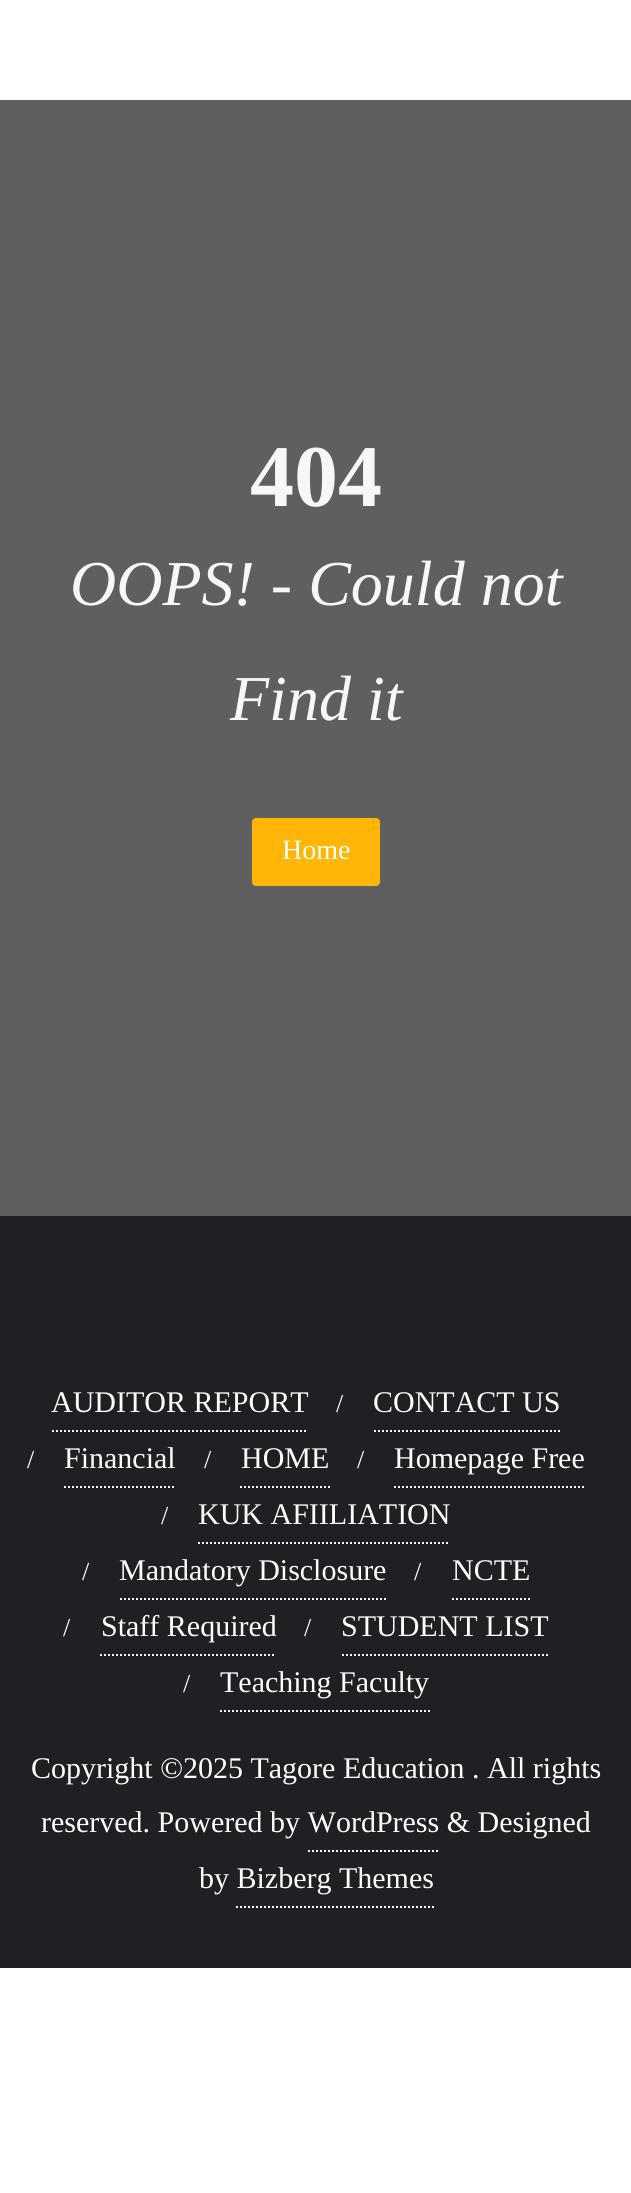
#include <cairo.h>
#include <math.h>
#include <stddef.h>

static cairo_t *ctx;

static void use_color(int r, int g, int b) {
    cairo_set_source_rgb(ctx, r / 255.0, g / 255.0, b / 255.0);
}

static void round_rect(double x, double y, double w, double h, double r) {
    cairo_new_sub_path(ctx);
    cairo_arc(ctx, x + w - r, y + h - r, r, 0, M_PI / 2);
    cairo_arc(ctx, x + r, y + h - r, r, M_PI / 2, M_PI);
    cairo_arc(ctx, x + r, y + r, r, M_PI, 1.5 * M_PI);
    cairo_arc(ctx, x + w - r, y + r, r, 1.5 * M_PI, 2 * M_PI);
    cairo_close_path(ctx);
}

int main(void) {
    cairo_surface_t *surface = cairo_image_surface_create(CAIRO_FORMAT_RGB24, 631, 2193);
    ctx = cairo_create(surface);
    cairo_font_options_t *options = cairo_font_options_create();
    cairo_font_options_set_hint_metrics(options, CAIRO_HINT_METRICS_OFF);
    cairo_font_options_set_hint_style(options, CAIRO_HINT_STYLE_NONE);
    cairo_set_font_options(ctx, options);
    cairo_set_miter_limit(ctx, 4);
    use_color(255, 255, 255);
    cairo_paint(ctx);
    use_color(95, 95, 95);
    cairo_rectangle(ctx, 0, 100, 631, 1116);
    cairo_fill(ctx);
    cairo_select_font_face(ctx, "Liberation Serif", CAIRO_FONT_SLANT_NORMAL, CAIRO_FONT_WEIGHT_BOLD);
    cairo_set_font_size(ctx, 88);
    use_color(247, 247, 247);
    cairo_move_to(ctx, 250, 506);
    cairo_show_text(ctx, "404");
    cairo_select_font_face(ctx, "Liberation Serif", CAIRO_FONT_SLANT_ITALIC, CAIRO_FONT_WEIGHT_NORMAL);
    cairo_set_font_size(ctx, 64);
    cairo_move_to(ctx, 70, 605);
    cairo_show_text(ctx, "OOPS! - Could not");
    cairo_move_to(ctx, 230, 720);
    cairo_show_text(ctx, "Find it");
    use_color(255, 182, 6);
    round_rect(252, 818, 128, 68, 4);
    cairo_fill(ctx);
    cairo_select_font_face(ctx, "Liberation Serif", CAIRO_FONT_SLANT_NORMAL, CAIRO_FONT_WEIGHT_NORMAL);
    cairo_set_font_size(ctx, 28);
    use_color(255, 255, 255);
    cairo_move_to(ctx, 282, 859);
    cairo_show_text(ctx, "Home");
    use_color(31, 32, 36);
    cairo_rectangle(ctx, 0, 1216, 631, 752);
    cairo_fill(ctx);
    cairo_new_path(ctx);
    cairo_move_to(ctx, 52, 1431);
    cairo_line_to(ctx, 308, 1431);
    use_color(255, 255, 255);
    cairo_set_dash(ctx, (double[]){2, 2}, 2, 0);
    cairo_stroke(ctx);
    cairo_set_font_size(ctx, 30);
    cairo_move_to(ctx, 51, 1412);
    cairo_show_text(ctx, "AUDITOR REPORT");
    cairo_set_font_size(ctx, 26);
    cairo_move_to(ctx, 336, 1412);
    cairo_show_text(ctx, "/");
    cairo_new_path(ctx);
    cairo_move_to(ctx, 374, 1431);
    cairo_line_to(ctx, 560, 1431);
    cairo_stroke(ctx);
    cairo_set_font_size(ctx, 30);
    cairo_move_to(ctx, 373, 1412);
    cairo_show_text(ctx, "CONTACT US");
    cairo_set_font_size(ctx, 26);
    cairo_move_to(ctx, 27, 1468);
    cairo_show_text(ctx, "/");
    cairo_new_path(ctx);
    cairo_move_to(ctx, 64, 1487);
    cairo_line_to(ctx, 176, 1487);
    cairo_stroke(ctx);
    cairo_set_font_size(ctx, 30);
    cairo_move_to(ctx, 64, 1468);
    cairo_show_text(ctx, "Financial");
    cairo_set_font_size(ctx, 26);
    cairo_move_to(ctx, 204, 1468);
    cairo_show_text(ctx, "/");
    cairo_new_path(ctx);
    cairo_move_to(ctx, 240, 1487);
    cairo_line_to(ctx, 330, 1487);
    cairo_stroke(ctx);
    cairo_set_font_size(ctx, 30);
    cairo_move_to(ctx, 241, 1468);
    cairo_show_text(ctx, "HOME");
    cairo_set_font_size(ctx, 26);
    cairo_move_to(ctx, 357, 1468);
    cairo_show_text(ctx, "/");
    cairo_new_path(ctx);
    cairo_move_to(ctx, 394, 1487);
    cairo_line_to(ctx, 584, 1487);
    cairo_stroke(ctx);
    cairo_set_font_size(ctx, 30);
    cairo_move_to(ctx, 394, 1468);
    cairo_show_text(ctx, "Homepage Free");
    cairo_set_font_size(ctx, 26);
    cairo_move_to(ctx, 161, 1524);
    cairo_show_text(ctx, "/");
    cairo_new_path(ctx);
    cairo_move_to(ctx, 198, 1543);
    cairo_line_to(ctx, 450, 1543);
    cairo_stroke(ctx);
    cairo_set_font_size(ctx, 30);
    cairo_move_to(ctx, 198, 1524);
    cairo_show_text(ctx, "KUK AFIILIATION");
    cairo_set_font_size(ctx, 26);
    cairo_move_to(ctx, 82, 1580);
    cairo_show_text(ctx, "/");
    cairo_new_path(ctx);
    cairo_move_to(ctx, 120, 1599);
    cairo_line_to(ctx, 386, 1599);
    cairo_stroke(ctx);
    cairo_set_font_size(ctx, 30);
    cairo_move_to(ctx, 119, 1580);
    cairo_show_text(ctx, "Mandatory Disclosure");
    cairo_set_font_size(ctx, 26);
    cairo_move_to(ctx, 414, 1580);
    cairo_show_text(ctx, "/");
    cairo_new_path(ctx);
    cairo_move_to(ctx, 452, 1599);
    cairo_line_to(ctx, 530, 1599);
    cairo_stroke(ctx);
    cairo_set_font_size(ctx, 30);
    cairo_move_to(ctx, 452, 1580);
    cairo_show_text(ctx, "NCTE");
    cairo_set_font_size(ctx, 26);
    cairo_move_to(ctx, 63, 1636);
    cairo_show_text(ctx, "/");
    cairo_new_path(ctx);
    cairo_move_to(ctx, 100, 1655);
    cairo_line_to(ctx, 276, 1655);
    cairo_stroke(ctx);
    cairo_set_font_size(ctx, 30);
    cairo_move_to(ctx, 101, 1636);
    cairo_show_text(ctx, "Staff Required");
    cairo_set_font_size(ctx, 26);
    cairo_move_to(ctx, 304, 1636);
    cairo_show_text(ctx, "/");
    cairo_new_path(ctx);
    cairo_move_to(ctx, 342, 1655);
    cairo_line_to(ctx, 548, 1655);
    cairo_stroke(ctx);
    cairo_set_font_size(ctx, 30);
    cairo_move_to(ctx, 341, 1636);
    cairo_show_text(ctx, "STUDENT LIST");
    cairo_set_font_size(ctx, 26);
    cairo_move_to(ctx, 183, 1692);
    cairo_show_text(ctx, "/");
    cairo_new_path(ctx);
    cairo_move_to(ctx, 220, 1711);
    cairo_line_to(ctx, 430, 1711);
    cairo_stroke(ctx);
    cairo_set_font_size(ctx, 30);
    cairo_move_to(ctx, 220, 1692);
    cairo_show_text(ctx, "Teaching Faculty");
    cairo_move_to(ctx, 31, 1778);
    cairo_show_text(ctx, "Copyright ©2025 Tagore Education . All rights");
    cairo_move_to(ctx, 41, 1832);
    cairo_show_text(ctx, "reserved. Powered by WordPress & Designed");
    cairo_new_path(ctx);
    cairo_move_to(ctx, 308, 1851);
    cairo_line_to(ctx, 440, 1851);
    cairo_stroke(ctx);
    cairo_move_to(ctx, 199, 1888);
    cairo_show_text(ctx, "by Bizberg Themes");
    cairo_new_path(ctx);
    cairo_move_to(ctx, 236, 1907);
    cairo_line_to(ctx, 434, 1907);
    cairo_stroke(ctx);
    cairo_surface_write_to_png(surface, "result.png");
    cairo_font_options_destroy(options);
    cairo_destroy(ctx);
    cairo_surface_destroy(surface);
    return 0;
}
